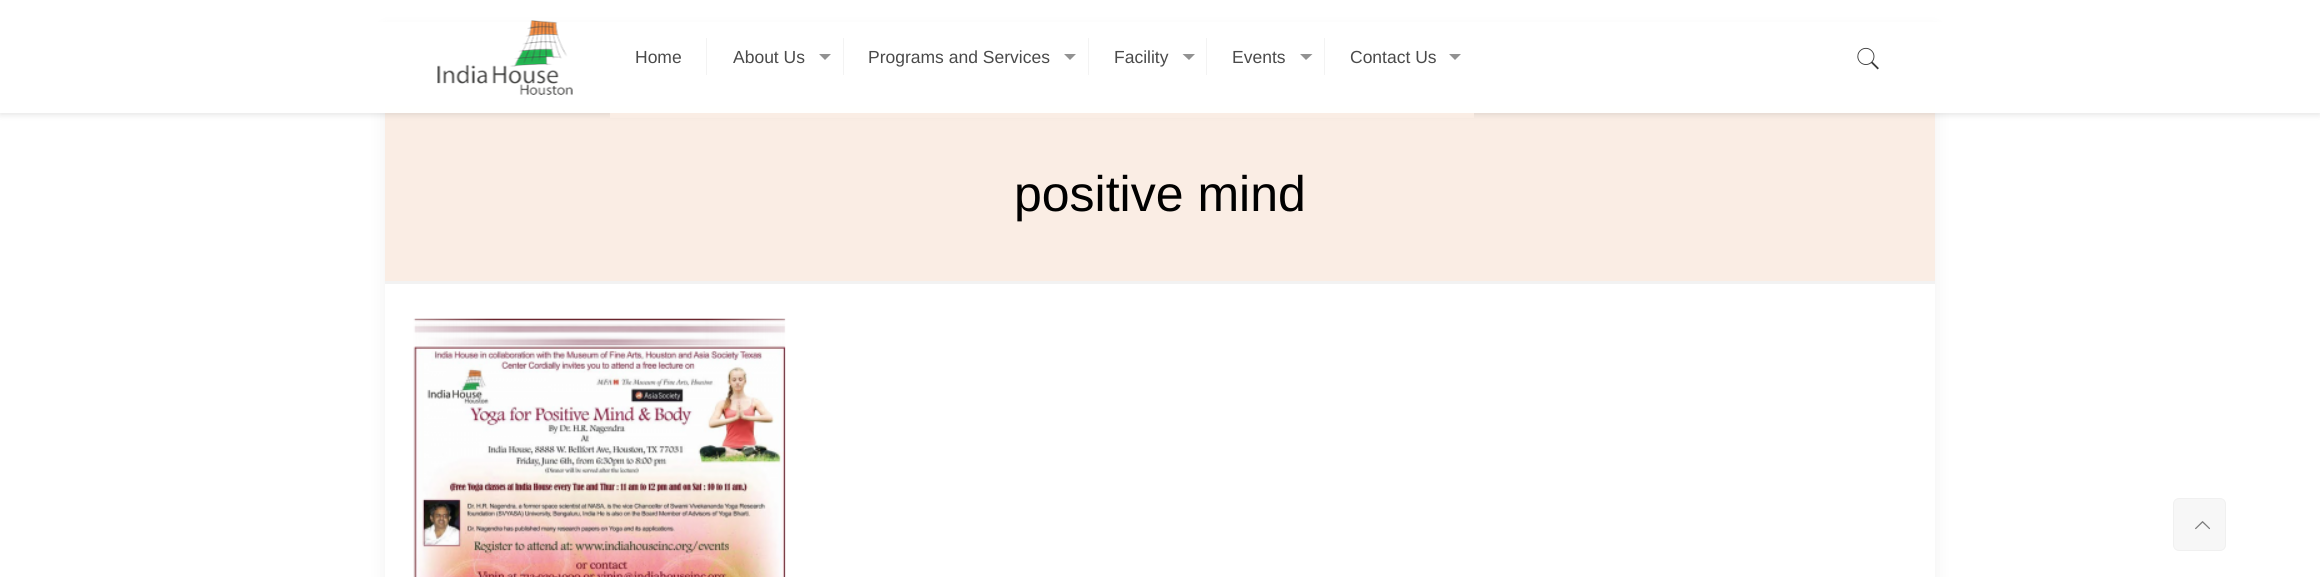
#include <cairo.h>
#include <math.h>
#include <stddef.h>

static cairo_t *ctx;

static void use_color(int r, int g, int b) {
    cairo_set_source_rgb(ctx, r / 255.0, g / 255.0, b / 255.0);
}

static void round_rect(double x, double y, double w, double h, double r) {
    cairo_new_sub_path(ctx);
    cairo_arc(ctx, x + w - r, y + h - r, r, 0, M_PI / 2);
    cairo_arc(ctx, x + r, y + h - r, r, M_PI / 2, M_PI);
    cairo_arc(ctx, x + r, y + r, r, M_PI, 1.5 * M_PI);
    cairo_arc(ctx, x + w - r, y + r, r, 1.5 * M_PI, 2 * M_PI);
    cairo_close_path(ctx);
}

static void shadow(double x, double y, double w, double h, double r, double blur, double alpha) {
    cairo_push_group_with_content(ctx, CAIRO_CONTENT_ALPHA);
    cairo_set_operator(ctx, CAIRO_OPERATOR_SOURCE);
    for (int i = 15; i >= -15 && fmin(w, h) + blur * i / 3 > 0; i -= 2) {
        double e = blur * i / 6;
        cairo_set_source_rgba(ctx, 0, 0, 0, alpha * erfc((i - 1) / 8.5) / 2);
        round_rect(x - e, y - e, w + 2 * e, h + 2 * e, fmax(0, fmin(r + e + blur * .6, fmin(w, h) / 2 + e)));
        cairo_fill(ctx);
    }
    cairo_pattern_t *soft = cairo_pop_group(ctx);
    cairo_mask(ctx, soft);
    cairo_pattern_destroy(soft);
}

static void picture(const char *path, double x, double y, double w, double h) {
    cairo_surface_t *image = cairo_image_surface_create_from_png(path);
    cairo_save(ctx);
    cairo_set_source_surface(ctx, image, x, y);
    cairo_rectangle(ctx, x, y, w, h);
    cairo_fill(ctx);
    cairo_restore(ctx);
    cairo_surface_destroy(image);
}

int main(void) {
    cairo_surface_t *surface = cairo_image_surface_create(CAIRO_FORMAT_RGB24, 2320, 577);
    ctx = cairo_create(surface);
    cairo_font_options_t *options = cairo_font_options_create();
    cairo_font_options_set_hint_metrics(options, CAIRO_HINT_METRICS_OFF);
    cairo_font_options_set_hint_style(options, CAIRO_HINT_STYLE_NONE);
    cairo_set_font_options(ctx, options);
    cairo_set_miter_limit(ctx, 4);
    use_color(255, 255, 255);
    cairo_paint(ctx);
    use_color(0, 0, 0);
    shadow(385, 31, 1550, 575, 0, 9.5, 0.06);
    use_color(255, 255, 255);
    cairo_rectangle(ctx, 385, 31, 1550, 546);
    cairo_fill(ctx);
    use_color(250, 237, 228);
    cairo_rectangle(ctx, 385, 106, 1550, 175);
    cairo_fill(ctx);
    cairo_save(ctx);
    cairo_set_fill_rule(ctx, CAIRO_FILL_RULE_EVEN_ODD);
    cairo_new_path(ctx);
    cairo_move_to(ctx, 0, 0);
    cairo_line_to(ctx, 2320, 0);
    cairo_line_to(ctx, 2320, 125);
    cairo_line_to(ctx, 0, 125);
    cairo_close_path(ctx);
    cairo_move_to(ctx, 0, 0);
    cairo_line_to(ctx, 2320, 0);
    cairo_line_to(ctx, 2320, 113);
    cairo_line_to(ctx, 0, 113);
    cairo_close_path(ctx);
    cairo_clip(ctx);
    use_color(0, 0, 0);
    shadow(0, 3, 2320, 112, 0, 3, 0.1);
    cairo_restore(ctx);
    cairo_set_source_rgba(ctx, 1, 1, 1, 0.97);
    cairo_rectangle(ctx, 0, 22, 2320, 91);
    cairo_fill(ctx);
    picture("img1.png", 437, 20, 136, 75);
    use_color(243, 243, 243);
    cairo_rectangle(ctx, 706, 38, 1, 37);
    cairo_fill(ctx);
    cairo_select_font_face(ctx, "Liberation Sans", CAIRO_FONT_SLANT_NORMAL, CAIRO_FONT_WEIGHT_NORMAL);
    cairo_set_font_size(ctx, 17.5);
    use_color(74, 74, 74);
    cairo_move_to(ctx, 635, 63);
    cairo_show_text(ctx, "Home");
    use_color(250, 237, 228);
    cairo_rectangle(ctx, 610, 113, 864, 5);
    cairo_fill(ctx);
    use_color(243, 243, 243);
    cairo_rectangle(ctx, 843, 38, 1, 37);
    cairo_fill(ctx);
    use_color(74, 74, 74);
    cairo_move_to(ctx, 733, 63);
    cairo_show_text(ctx, "About Us");
    use_color(146, 146, 146);
    cairo_new_path(ctx);
    cairo_move_to(ctx, 819, 54);
    cairo_line_to(ctx, 831, 54);
    cairo_line_to(ctx, 825, 60);
    cairo_close_path(ctx);
    cairo_fill(ctx);
    use_color(243, 243, 243);
    cairo_rectangle(ctx, 1088, 38, 1, 37);
    cairo_fill(ctx);
    use_color(74, 74, 74);
    cairo_move_to(ctx, 868, 63);
    cairo_show_text(ctx, "Programs and Services");
    use_color(146, 146, 146);
    cairo_new_path(ctx);
    cairo_move_to(ctx, 1064, 54);
    cairo_line_to(ctx, 1076, 54);
    cairo_line_to(ctx, 1070, 60);
    cairo_close_path(ctx);
    cairo_fill(ctx);
    use_color(243, 243, 243);
    cairo_rectangle(ctx, 1206, 38, 1, 37);
    cairo_fill(ctx);
    use_color(74, 74, 74);
    cairo_move_to(ctx, 1114, 63);
    cairo_show_text(ctx, "Facility");
    use_color(146, 146, 146);
    cairo_new_path(ctx);
    cairo_move_to(ctx, 1182.5, 54);
    cairo_line_to(ctx, 1195, 54);
    cairo_line_to(ctx, 1189, 60);
    cairo_close_path(ctx);
    cairo_fill(ctx);
    use_color(243, 243, 243);
    cairo_rectangle(ctx, 1324, 38, 1, 37);
    cairo_fill(ctx);
    use_color(74, 74, 74);
    cairo_move_to(ctx, 1232, 63);
    cairo_show_text(ctx, "Events");
    use_color(146, 146, 146);
    cairo_new_path(ctx);
    cairo_move_to(ctx, 1300, 54);
    cairo_line_to(ctx, 1312.5, 54);
    cairo_line_to(ctx, 1306, 60);
    cairo_close_path(ctx);
    cairo_fill(ctx);
    use_color(74, 74, 74);
    cairo_move_to(ctx, 1350, 63);
    cairo_show_text(ctx, "Contact Us");
    use_color(146, 146, 146);
    cairo_new_path(ctx);
    cairo_move_to(ctx, 1449, 54);
    cairo_line_to(ctx, 1461, 54);
    cairo_line_to(ctx, 1455, 60);
    cairo_close_path(ctx);
    cairo_fill(ctx);
    picture("img2.png", 1857, 47, 22, 23);
    cairo_set_font_size(ctx, 50);
    use_color(0, 0, 0);
    cairo_move_to(ctx, 1014, 211);
    cairo_show_text(ctx, "positive mind");
    use_color(242, 242, 242);
    cairo_rectangle(ctx, 385, 281, 1550, 3);
    cairo_fill(ctx);
    picture("img3.png", 413, 318, 373, 259);
    use_color(247, 247, 247);
    round_rect(2173.5, 498.5, 52, 52, 5.5);
    cairo_fill_preserve(ctx);
    use_color(240, 240, 240);
    cairo_set_line_width(ctx, 1);
    cairo_stroke(ctx);
    picture("img4.png", 2195, 521, 15, 9);
    cairo_surface_write_to_png(surface, "result.png");
    cairo_font_options_destroy(options);
    cairo_destroy(ctx);
    cairo_surface_destroy(surface);
    return 0;
}
